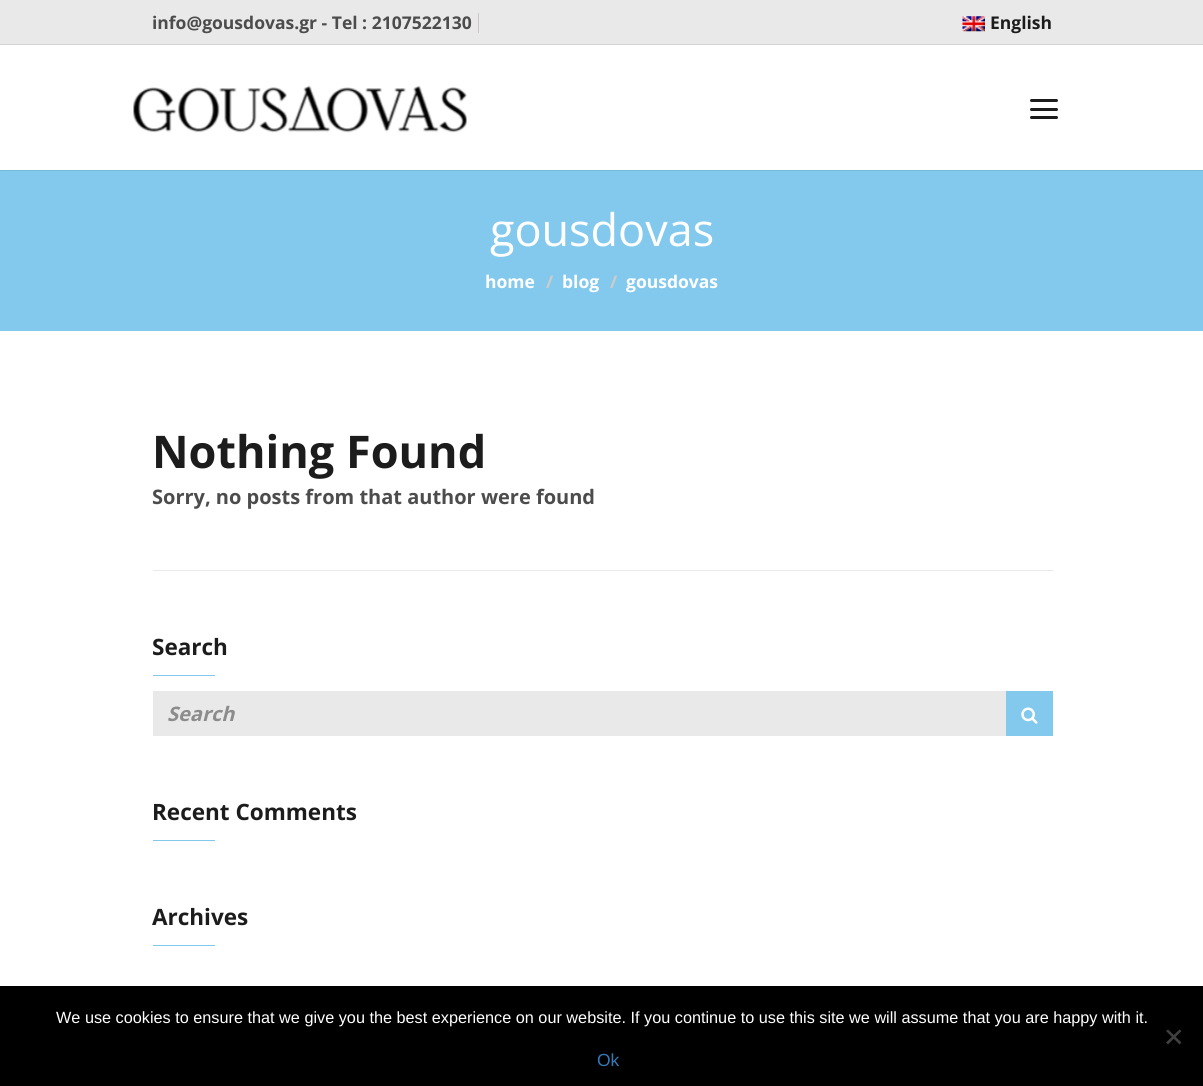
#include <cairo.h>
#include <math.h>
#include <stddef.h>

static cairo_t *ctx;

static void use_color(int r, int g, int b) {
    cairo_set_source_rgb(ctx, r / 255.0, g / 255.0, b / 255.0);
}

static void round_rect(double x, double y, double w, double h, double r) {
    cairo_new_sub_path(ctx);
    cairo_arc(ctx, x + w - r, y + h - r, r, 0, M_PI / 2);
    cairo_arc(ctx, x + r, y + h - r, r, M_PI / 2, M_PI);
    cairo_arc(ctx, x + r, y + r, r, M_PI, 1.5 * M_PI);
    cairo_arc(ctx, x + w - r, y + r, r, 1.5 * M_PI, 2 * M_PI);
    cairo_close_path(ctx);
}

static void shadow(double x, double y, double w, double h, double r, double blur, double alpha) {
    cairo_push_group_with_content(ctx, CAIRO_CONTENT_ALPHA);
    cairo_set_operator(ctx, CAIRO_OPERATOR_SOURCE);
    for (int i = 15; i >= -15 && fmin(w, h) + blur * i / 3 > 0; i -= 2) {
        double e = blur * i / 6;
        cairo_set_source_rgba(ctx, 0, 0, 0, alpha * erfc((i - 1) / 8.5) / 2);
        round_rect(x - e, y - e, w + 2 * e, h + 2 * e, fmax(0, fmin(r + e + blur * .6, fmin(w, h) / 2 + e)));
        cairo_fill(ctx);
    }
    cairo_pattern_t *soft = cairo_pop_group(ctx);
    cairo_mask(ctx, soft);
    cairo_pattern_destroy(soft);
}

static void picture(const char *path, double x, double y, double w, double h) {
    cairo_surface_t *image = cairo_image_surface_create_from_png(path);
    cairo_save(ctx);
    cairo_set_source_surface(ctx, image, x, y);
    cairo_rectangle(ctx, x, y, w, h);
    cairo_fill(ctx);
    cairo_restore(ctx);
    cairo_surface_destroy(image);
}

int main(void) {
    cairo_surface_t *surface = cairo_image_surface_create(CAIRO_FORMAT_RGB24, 1203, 1086);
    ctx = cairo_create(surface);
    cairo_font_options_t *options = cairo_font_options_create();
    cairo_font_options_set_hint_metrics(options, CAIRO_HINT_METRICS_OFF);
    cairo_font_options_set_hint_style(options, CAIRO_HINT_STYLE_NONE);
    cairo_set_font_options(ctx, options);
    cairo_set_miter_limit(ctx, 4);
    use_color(255, 255, 255);
    cairo_paint(ctx);
    use_color(233, 233, 233);
    cairo_rectangle(ctx, 0, 0, 1203, 44);
    cairo_fill(ctx);
    use_color(210, 210, 210);
    cairo_rectangle(ctx, 0, 44, 1203, 1);
    cairo_fill(ctx);
    cairo_select_font_face(ctx, "Open Sans", CAIRO_FONT_SLANT_NORMAL, CAIRO_FONT_WEIGHT_BOLD);
    cairo_set_font_size(ctx, 17.5);
    use_color(76, 76, 76);
    cairo_move_to(ctx, 152, 29);
    cairo_show_text(ctx, "info@gousdovas.gr - Tel : 2107522130");
    use_color(201, 199, 199);
    cairo_rectangle(ctx, 478, 13, 1, 20);
    cairo_fill(ctx);
    picture("img1.png", 962, 16, 23, 16);
    use_color(28, 28, 28);
    cairo_move_to(ctx, 990, 29);
    cairo_show_text(ctx, "English");
    use_color(130, 201, 237);
    cairo_rectangle(ctx, 0, 170, 1203, 161);
    cairo_fill(ctx);
    cairo_save(ctx);
    cairo_rectangle(ctx, 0, 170, 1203, 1);
    cairo_clip(ctx);
    use_color(0, 0, 0);
    shadow(0, 46, 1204, 125, 0, 0.5, 0.1);
    cairo_restore(ctx);
    picture("img2.png", 133, 85, 334, 48);
    use_color(28, 28, 28);
    round_rect(1030, 99, 28, 3, 1.5);
    cairo_fill(ctx);
    round_rect(1030, 108, 28, 3, 1.5);
    cairo_fill(ctx);
    round_rect(1030, 116, 28, 3, 1.5);
    cairo_fill(ctx);
    cairo_select_font_face(ctx, "Open Sans", CAIRO_FONT_SLANT_NORMAL, CAIRO_FONT_WEIGHT_NORMAL);
    cairo_set_font_size(ctx, 45);
    use_color(255, 255, 255);
    cairo_move_to(ctx, 490, 246);
    cairo_show_text(ctx, "gousdovas");
    cairo_select_font_face(ctx, "Open Sans", CAIRO_FONT_SLANT_NORMAL, CAIRO_FONT_WEIGHT_BOLD);
    cairo_set_font_size(ctx, 17.5);
    cairo_move_to(ctx, 485, 288);
    cairo_show_text(ctx, "home");
    use_color(204, 204, 204);
    cairo_move_to(ctx, 546, 288);
    cairo_show_text(ctx, "/");
    use_color(255, 255, 255);
    cairo_move_to(ctx, 562, 288);
    cairo_show_text(ctx, "blog");
    use_color(204, 204, 204);
    cairo_move_to(ctx, 610, 288);
    cairo_show_text(ctx, "/");
    use_color(255, 255, 255);
    cairo_move_to(ctx, 626, 288);
    cairo_show_text(ctx, "gousdovas");
    cairo_set_font_size(ctx, 45);
    use_color(28, 28, 28);
    cairo_move_to(ctx, 152, 468);
    cairo_show_text(ctx, "Nothing Found");
    cairo_set_font_size(ctx, 20);
    use_color(76, 76, 76);
    cairo_move_to(ctx, 152, 504);
    cairo_show_text(ctx, "Sorry, no posts from that author were found");
    use_color(233, 233, 233);
    cairo_rectangle(ctx, 153, 570, 900, 1);
    cairo_fill(ctx);
    cairo_set_font_size(ctx, 22.5);
    use_color(28, 28, 28);
    cairo_move_to(ctx, 152, 655);
    cairo_show_text(ctx, "Search");
    use_color(130, 201, 237);
    cairo_rectangle(ctx, 153, 675, 62, 1);
    cairo_fill(ctx);
    use_color(233, 233, 233);
    cairo_rectangle(ctx, 153, 691, 853, 45);
    cairo_fill(ctx);
    cairo_select_font_face(ctx, "Open Sans", CAIRO_FONT_SLANT_ITALIC, CAIRO_FONT_WEIGHT_BOLD);
    cairo_set_font_size(ctx, 20);
    use_color(140, 140, 140);
    cairo_move_to(ctx, 167, 721);
    cairo_show_text(ctx, "Search");
    use_color(130, 201, 237);
    cairo_rectangle(ctx, 1006, 691, 47, 45);
    cairo_fill(ctx);
    picture("img3.png", 1021, 707, 17, 17);
    cairo_select_font_face(ctx, "Open Sans", CAIRO_FONT_SLANT_NORMAL, CAIRO_FONT_WEIGHT_BOLD);
    cairo_set_font_size(ctx, 22.5);
    use_color(28, 28, 28);
    cairo_move_to(ctx, 152, 820);
    cairo_show_text(ctx, "Recent Comments");
    use_color(130, 201, 237);
    cairo_rectangle(ctx, 153, 840, 62, 1);
    cairo_fill(ctx);
    use_color(28, 28, 28);
    cairo_move_to(ctx, 152, 925);
    cairo_show_text(ctx, "Archives");
    use_color(130, 201, 237);
    cairo_rectangle(ctx, 153, 945, 62, 1);
    cairo_fill(ctx);
    use_color(0, 0, 0);
    cairo_rectangle(ctx, 0, 986, 1203, 100);
    cairo_fill(ctx);
    cairo_select_font_face(ctx, "Liberation Sans", CAIRO_FONT_SLANT_NORMAL, CAIRO_FONT_WEIGHT_NORMAL);
    cairo_set_font_size(ctx, 16.25);
    use_color(255, 255, 255);
    cairo_move_to(ctx, 56, 1023);
    cairo_show_text(ctx, "We use cookies to ensure that we give you the best experience on our website. If you continue to use this site we will assume that you are happy with it.");
    use_color(64, 64, 64);
    cairo_new_path(ctx);
    cairo_move_to(ctx, 1179.5, 1029.5);
    cairo_line_to(ctx, 1181.5, 1031);
    cairo_line_to(ctx, 1168, 1044.5);
    cairo_line_to(ctx, 1166, 1042.5);
    cairo_close_path(ctx);
    cairo_fill(ctx);
    cairo_new_path(ctx);
    cairo_move_to(ctx, 1166, 1031);
    cairo_line_to(ctx, 1168, 1029.5);
    cairo_line_to(ctx, 1181.5, 1042.5);
    cairo_line_to(ctx, 1179.5, 1044.5);
    cairo_close_path(ctx);
    cairo_fill(ctx);
    cairo_set_font_size(ctx, 17.5);
    use_color(51, 122, 183);
    cairo_move_to(ctx, 597, 1066);
    cairo_show_text(ctx, "Ok");
    cairo_surface_write_to_png(surface, "result.png");
    cairo_font_options_destroy(options);
    cairo_destroy(ctx);
    cairo_surface_destroy(surface);
    return 0;
}
